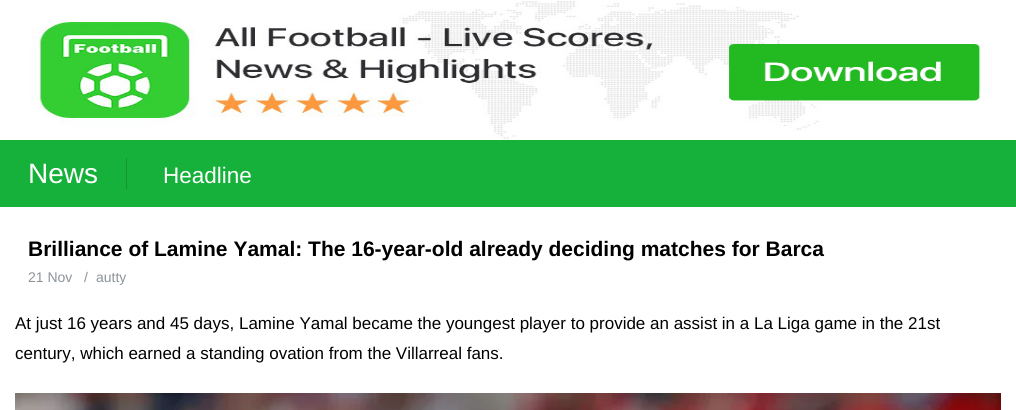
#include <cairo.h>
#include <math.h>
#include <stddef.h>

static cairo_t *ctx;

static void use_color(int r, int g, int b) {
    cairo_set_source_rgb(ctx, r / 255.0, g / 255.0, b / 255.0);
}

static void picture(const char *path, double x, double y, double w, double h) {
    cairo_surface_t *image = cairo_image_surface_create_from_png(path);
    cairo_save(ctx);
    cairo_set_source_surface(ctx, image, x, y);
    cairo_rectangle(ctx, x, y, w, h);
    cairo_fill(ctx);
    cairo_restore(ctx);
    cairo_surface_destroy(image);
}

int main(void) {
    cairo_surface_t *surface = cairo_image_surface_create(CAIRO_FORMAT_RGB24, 1016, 410);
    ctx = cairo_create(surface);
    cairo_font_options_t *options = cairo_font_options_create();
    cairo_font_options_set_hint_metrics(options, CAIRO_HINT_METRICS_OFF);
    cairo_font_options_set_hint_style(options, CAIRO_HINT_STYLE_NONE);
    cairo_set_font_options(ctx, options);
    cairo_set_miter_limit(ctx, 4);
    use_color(255, 255, 255);
    cairo_paint(ctx);
    picture("img1.png", 30, 1, 962, 138);
    use_color(22, 177, 58);
    cairo_rectangle(ctx, 0, 140, 1016, 67);
    cairo_fill(ctx);
    cairo_select_font_face(ctx, "Liberation Sans", CAIRO_FONT_SLANT_NORMAL, CAIRO_FONT_WEIGHT_NORMAL);
    cairo_set_font_size(ctx, 28);
    use_color(255, 255, 255);
    cairo_move_to(ctx, 28, 183);
    cairo_show_text(ctx, "News");
    use_color(17, 151, 48);
    cairo_rectangle(ctx, 126, 158, 1, 31);
    cairo_fill(ctx);
    cairo_set_font_size(ctx, 22.5);
    use_color(255, 255, 255);
    cairo_move_to(ctx, 163, 183);
    cairo_show_text(ctx, "Headline");
    cairo_select_font_face(ctx, "Liberation Sans", CAIRO_FONT_SLANT_NORMAL, CAIRO_FONT_WEIGHT_BOLD);
    cairo_set_font_size(ctx, 21);
    use_color(0, 0, 0);
    cairo_move_to(ctx, 28, 256);
    cairo_show_text(ctx, "Brilliance of Lamine Yamal: The 16-year-old already deciding matches for Barca");
    cairo_select_font_face(ctx, "Liberation Sans", CAIRO_FONT_SLANT_NORMAL, CAIRO_FONT_WEIGHT_NORMAL);
    cairo_set_font_size(ctx, 14);
    use_color(140, 147, 153);
    cairo_move_to(ctx, 28, 282);
    cairo_show_text(ctx, "21 Nov");
    cairo_move_to(ctx, 84, 282);
    cairo_show_text(ctx, "/");
    cairo_move_to(ctx, 96, 282);
    cairo_show_text(ctx, "autty");
    cairo_set_font_size(ctx, 17);
    use_color(0, 0, 0);
    cairo_move_to(ctx, 15, 329);
    cairo_show_text(ctx, "At just 16 years and 45 days, Lamine Yamal became the youngest player to provide an assist in a La Liga game in the 21st");
    cairo_move_to(ctx, 15, 359);
    cairo_show_text(ctx, "century, which earned a standing ovation from the Villarreal fans.");
    picture("img2.png", 15, 393, 986, 17);
    cairo_surface_write_to_png(surface, "result.png");
    cairo_font_options_destroy(options);
    cairo_destroy(ctx);
    cairo_surface_destroy(surface);
    return 0;
}
